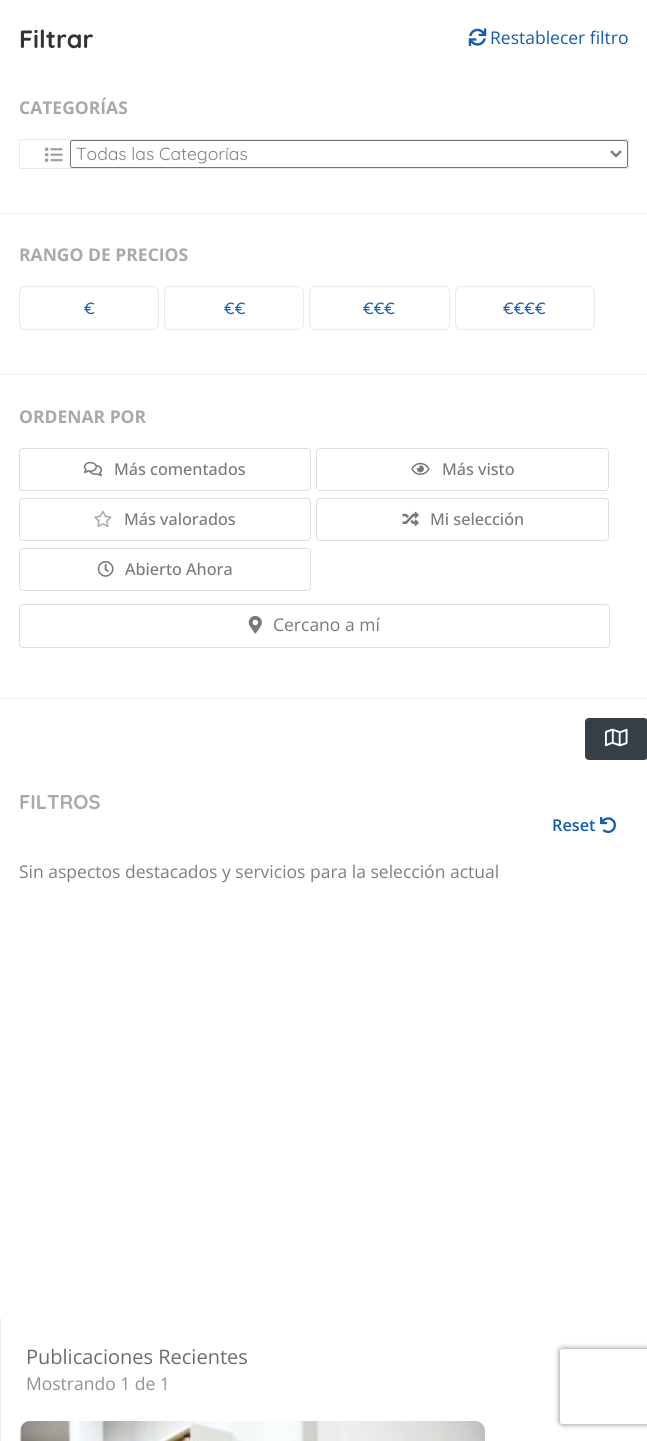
#include <cairo.h>
#include <math.h>
#include <stddef.h>

static cairo_t *ctx;

static void use_color(int r, int g, int b) {
    cairo_set_source_rgb(ctx, r / 255.0, g / 255.0, b / 255.0);
}

static void round_rect(double x, double y, double w, double h, double r) {
    cairo_new_sub_path(ctx);
    cairo_arc(ctx, x + w - r, y + h - r, r, 0, M_PI / 2);
    cairo_arc(ctx, x + r, y + h - r, r, M_PI / 2, M_PI);
    cairo_arc(ctx, x + r, y + r, r, M_PI, 1.5 * M_PI);
    cairo_arc(ctx, x + w - r, y + r, r, 1.5 * M_PI, 2 * M_PI);
    cairo_close_path(ctx);
}

static void shadow(double x, double y, double w, double h, double r, double blur, double alpha) {
    cairo_push_group_with_content(ctx, CAIRO_CONTENT_ALPHA);
    cairo_set_operator(ctx, CAIRO_OPERATOR_SOURCE);
    for (int i = 15; i >= -15 && fmin(w, h) + blur * i / 3 > 0; i -= 2) {
        double e = blur * i / 6;
        cairo_set_source_rgba(ctx, 0, 0, 0, alpha * erfc((i - 1) / 8.5) / 2);
        round_rect(x - e, y - e, w + 2 * e, h + 2 * e, fmax(0, fmin(r + e + blur * .6, fmin(w, h) / 2 + e)));
        cairo_fill(ctx);
    }
    cairo_pattern_t *soft = cairo_pop_group(ctx);
    cairo_mask(ctx, soft);
    cairo_pattern_destroy(soft);
}

static void picture(const char *path, double x, double y, double w, double h) {
    cairo_surface_t *image = cairo_image_surface_create_from_png(path);
    cairo_save(ctx);
    cairo_set_source_surface(ctx, image, x, y);
    cairo_rectangle(ctx, x, y, w, h);
    cairo_fill(ctx);
    cairo_restore(ctx);
    cairo_surface_destroy(image);
}

int main(void) {
    cairo_surface_t *surface = cairo_image_surface_create(CAIRO_FORMAT_RGB24, 647, 1441);
    ctx = cairo_create(surface);
    cairo_font_options_t *options = cairo_font_options_create();
    cairo_font_options_set_hint_metrics(options, CAIRO_HINT_METRICS_OFF);
    cairo_font_options_set_hint_style(options, CAIRO_HINT_STYLE_NONE);
    cairo_set_font_options(ctx, options);
    cairo_set_miter_limit(ctx, 4);
    use_color(255, 255, 255);
    cairo_paint(ctx);
    cairo_select_font_face(ctx, "Quicksand", CAIRO_FONT_SLANT_NORMAL, CAIRO_FONT_WEIGHT_BOLD);
    cairo_set_font_size(ctx, 25);
    use_color(51, 51, 51);
    cairo_move_to(ctx, 19, 48);
    cairo_show_text(ctx, "Filtrar");
    picture("img1.png", 468, 28, 19, 18);
    cairo_select_font_face(ctx, "Open Sans", CAIRO_FONT_SLANT_NORMAL, CAIRO_FONT_WEIGHT_NORMAL);
    cairo_set_font_size(ctx, 17.5);
    use_color(19, 92, 174);
    cairo_move_to(ctx, 490, 44);
    cairo_show_text(ctx, "Restablecer filtro");
    use_color(238, 238, 238);
    cairo_rectangle(ctx, 0, 213, 647, 1);
    cairo_fill(ctx);
    cairo_select_font_face(ctx, "Open Sans", CAIRO_FONT_SLANT_NORMAL, CAIRO_FONT_WEIGHT_BOLD);
    use_color(170, 169, 169);
    cairo_move_to(ctx, 19, 114);
    cairo_show_text(ctx, "CATEGORÍAS");
    cairo_rectangle(ctx, 19.5, 139.5, 609, 29);
    use_color(234, 234, 234);
    cairo_set_line_width(ctx, 1);
    cairo_stroke(ctx);
    use_color(248, 248, 248);
    round_rect(20, 140, 608, 28, 4);
    cairo_fill(ctx);
    use_color(255, 255, 255);
    round_rect(20, 140, 50, 28, 4);
    cairo_fill(ctx);
    picture("img2.png", 45, 147, 18, 15);
    round_rect(70.5, 140.5, 557, 27, 2);
    cairo_fill_preserve(ctx);
    use_color(118, 118, 118);
    cairo_stroke(ctx);
    cairo_new_path(ctx);
    cairo_move_to(ctx, 611, 151);
    cairo_line_to(ctx, 616, 156);
    cairo_line_to(ctx, 621, 151);
    use_color(127, 127, 127);
    cairo_set_line_width(ctx, 2.5);
    cairo_stroke(ctx);
    cairo_select_font_face(ctx, "Quicksand", CAIRO_FONT_SLANT_NORMAL, CAIRO_FONT_WEIGHT_NORMAL);
    cairo_move_to(ctx, 76, 160);
    cairo_show_text(ctx, "Todas las Categorías");
    use_color(238, 238, 238);
    cairo_rectangle(ctx, 0, 374, 647, 1);
    cairo_fill(ctx);
    cairo_select_font_face(ctx, "Open Sans", CAIRO_FONT_SLANT_NORMAL, CAIRO_FONT_WEIGHT_BOLD);
    use_color(170, 169, 169);
    cairo_move_to(ctx, 19, 261);
    cairo_show_text(ctx, "RANGO DE PRECIOS");
    round_rect(19.5, 286.5, 139, 43, 5.5);
    use_color(234, 234, 234);
    cairo_set_line_width(ctx, 1);
    cairo_stroke(ctx);
    cairo_select_font_face(ctx, "Quicksand Medium", CAIRO_FONT_SLANT_NORMAL, CAIRO_FONT_WEIGHT_NORMAL);
    cairo_set_font_size(ctx, 16.25);
    use_color(19, 92, 174);
    cairo_move_to(ctx, 84, 314);
    cairo_show_text(ctx, "€");
    round_rect(164.5, 286.5, 139, 43, 5.5);
    use_color(234, 234, 234);
    cairo_stroke(ctx);
    use_color(19, 92, 174);
    cairo_move_to(ctx, 224, 314);
    cairo_show_text(ctx, "€€");
    round_rect(309.5, 286.5, 140, 43, 5.5);
    use_color(234, 234, 234);
    cairo_stroke(ctx);
    use_color(19, 92, 174);
    cairo_move_to(ctx, 363, 314);
    cairo_show_text(ctx, "€€€");
    round_rect(455.5, 286.5, 139, 43, 5.5);
    use_color(234, 234, 234);
    cairo_stroke(ctx);
    use_color(19, 92, 174);
    cairo_move_to(ctx, 503, 314);
    cairo_show_text(ctx, "€€€€");
    use_color(238, 238, 238);
    cairo_rectangle(ctx, 0, 698, 647, 1);
    cairo_fill(ctx);
    cairo_select_font_face(ctx, "Open Sans", CAIRO_FONT_SLANT_NORMAL, CAIRO_FONT_WEIGHT_BOLD);
    cairo_set_font_size(ctx, 17.5);
    use_color(170, 169, 169);
    cairo_move_to(ctx, 19, 423);
    cairo_show_text(ctx, "ORDENAR POR");
    round_rect(19.5, 448.5, 291, 42, 3.5);
    use_color(222, 222, 222);
    cairo_stroke(ctx);
    picture("img3.png", 83, 461, 19, 15);
    cairo_select_font_face(ctx, "Open Sans Medium", CAIRO_FONT_SLANT_NORMAL, CAIRO_FONT_WEIGHT_NORMAL);
    cairo_set_font_size(ctx, 16.25);
    use_color(121, 121, 121);
    cairo_move_to(ctx, 114, 475);
    cairo_show_text(ctx, "Más comentados");
    round_rect(316.5, 448.5, 292, 42, 3.5);
    use_color(222, 222, 222);
    cairo_stroke(ctx);
    picture("img4.png", 411, 462, 19, 13);
    use_color(121, 121, 121);
    cairo_move_to(ctx, 442, 475);
    cairo_show_text(ctx, "Más visto");
    round_rect(19.5, 498.5, 291, 42, 3.5);
    use_color(222, 222, 222);
    cairo_stroke(ctx);
    picture("img5.png", 94, 510, 18, 17);
    use_color(121, 121, 121);
    cairo_move_to(ctx, 124, 525);
    cairo_show_text(ctx, "Más valorados");
    round_rect(316.5, 498.5, 292, 42, 3.5);
    use_color(222, 222, 222);
    cairo_stroke(ctx);
    picture("img6.png", 402, 511, 17, 15);
    use_color(121, 121, 121);
    cairo_move_to(ctx, 430, 525);
    cairo_show_text(ctx, "Mi selección");
    round_rect(19.5, 548.5, 291, 42, 3.5);
    use_color(222, 222, 222);
    cairo_stroke(ctx);
    picture("img7.png", 97, 561, 17, 16);
    use_color(121, 121, 121);
    cairo_move_to(ctx, 125, 575);
    cairo_show_text(ctx, "Abierto Ahora");
    round_rect(19.5, 604.5, 590, 43, 3.5);
    use_color(222, 222, 222);
    cairo_stroke(ctx);
    picture("img8.png", 248, 615, 14, 19);
    cairo_select_font_face(ctx, "Open Sans", CAIRO_FONT_SLANT_NORMAL, CAIRO_FONT_WEIGHT_NORMAL);
    cairo_set_font_size(ctx, 17.5);
    use_color(121, 121, 121);
    cairo_move_to(ctx, 273, 631);
    cairo_show_text(ctx, "Cercano a mí");
    use_color(54, 63, 72);
    round_rect(585.5, 718.5, 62, 41, 3.5);
    cairo_fill_preserve(ctx);
    cairo_stroke(ctx);
    picture("img9.png", 605, 728, 23, 19);
    cairo_select_font_face(ctx, "Quicksand", CAIRO_FONT_SLANT_NORMAL, CAIRO_FONT_WEIGHT_BOLD);
    cairo_set_font_size(ctx, 20);
    use_color(170, 169, 169);
    cairo_move_to(ctx, 19, 809);
    cairo_show_text(ctx, "FILTROS");
    cairo_select_font_face(ctx, "Open Sans SemiBold", CAIRO_FONT_SLANT_NORMAL, CAIRO_FONT_WEIGHT_NORMAL);
    cairo_set_font_size(ctx, 16.25);
    use_color(19, 92, 174);
    cairo_move_to(ctx, 552, 831);
    cairo_show_text(ctx, "Reset");
    picture("img10.png", 600, 817, 16, 16);
    cairo_select_font_face(ctx, "Open Sans", CAIRO_FONT_SLANT_NORMAL, CAIRO_FONT_WEIGHT_NORMAL);
    cairo_set_font_size(ctx, 17.5);
    use_color(127, 127, 127);
    cairo_move_to(ctx, 19, 878);
    cairo_show_text(ctx, "Sin aspectos destacados y servicios para la selección actual");
    use_color(238, 238, 238);
    cairo_rectangle(ctx, 0, 1318, 1, 123);
    cairo_fill(ctx);
    cairo_set_font_size(ctx, 20);
    use_color(108, 108, 108);
    cairo_move_to(ctx, 26, 1364);
    cairo_show_text(ctx, "Publicaciones Recientes");
    cairo_set_font_size(ctx, 17.5);
    use_color(145, 145, 145);
    cairo_move_to(ctx, 26, 1390);
    cairo_show_text(ctx, "Mostrando 1 de 1");
    round_rect(20.5, 1421.5, 464, 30, 9.5);
    use_color(227, 227, 227);
    cairo_stroke(ctx);
    picture("img11.png", 20, 1421, 465, 20);
    cairo_save(ctx);
    cairo_set_fill_rule(ctx, CAIRO_FILL_RULE_EVEN_ODD);
    cairo_new_path(ctx);
    cairo_move_to(ctx, 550, 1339);
    cairo_line_to(ctx, 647, 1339);
    cairo_line_to(ctx, 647, 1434);
    cairo_line_to(ctx, 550, 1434);
    cairo_close_path(ctx);
    cairo_move_to(ctx, 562.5, 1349);
    cairo_line_to(ctx, 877.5, 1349);
    cairo_curve_to(ctx, 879, 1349, 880, 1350, 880, 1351.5);
    cairo_line_to(ctx, 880, 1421.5);
    cairo_curve_to(ctx, 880, 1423, 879, 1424, 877.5, 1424);
    cairo_line_to(ctx, 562.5, 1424);
    cairo_curve_to(ctx, 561, 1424, 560, 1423, 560, 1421.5);
    cairo_line_to(ctx, 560, 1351.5);
    cairo_curve_to(ctx, 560, 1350, 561, 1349, 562.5, 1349);
    cairo_close_path(ctx);
    cairo_clip(ctx);
    use_color(128, 128, 128);
    shadow(560, 1349, 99, 75, 2.5, 3, 1);
    cairo_restore(ctx);
    cairo_surface_write_to_png(surface, "result.png");
    cairo_font_options_destroy(options);
    cairo_destroy(ctx);
    cairo_surface_destroy(surface);
    return 0;
}
